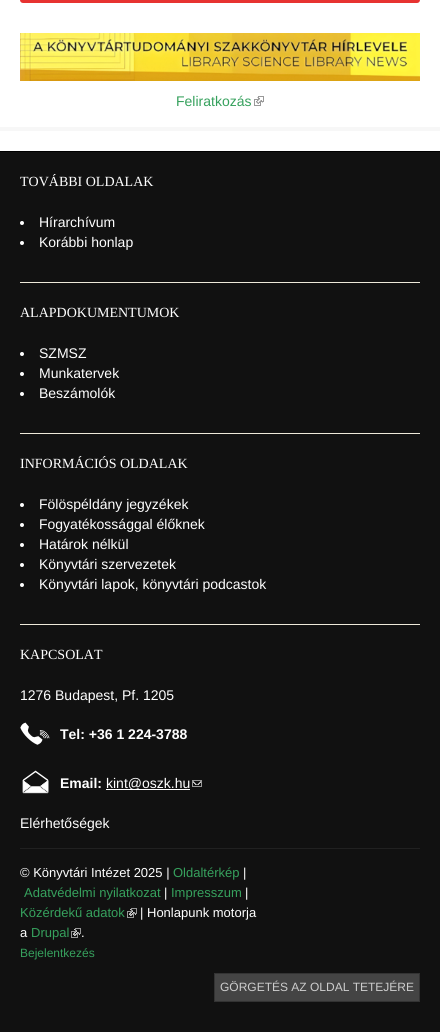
#include <cairo.h>
#include <math.h>
#include <stddef.h>

static cairo_t *ctx;

static void use_color(int r, int g, int b) {
    cairo_set_source_rgb(ctx, r / 255.0, g / 255.0, b / 255.0);
}

static void round_rect(double x, double y, double w, double h, double r) {
    cairo_new_sub_path(ctx);
    cairo_arc(ctx, x + w - r, y + h - r, r, 0, M_PI / 2);
    cairo_arc(ctx, x + r, y + h - r, r, M_PI / 2, M_PI);
    cairo_arc(ctx, x + r, y + r, r, M_PI, 1.5 * M_PI);
    cairo_arc(ctx, x + w - r, y + r, r, 1.5 * M_PI, 2 * M_PI);
    cairo_close_path(ctx);
}

static void picture(const char *path, double x, double y, double w, double h) {
    cairo_surface_t *image = cairo_image_surface_create_from_png(path);
    cairo_save(ctx);
    cairo_set_source_surface(ctx, image, x, y);
    cairo_rectangle(ctx, x, y, w, h);
    cairo_fill(ctx);
    cairo_restore(ctx);
    cairo_surface_destroy(image);
}

int main(void) {
    cairo_surface_t *surface = cairo_image_surface_create(CAIRO_FORMAT_RGB24, 440, 1032);
    ctx = cairo_create(surface);
    cairo_font_options_t *options = cairo_font_options_create();
    cairo_font_options_set_hint_metrics(options, CAIRO_HINT_METRICS_OFF);
    cairo_font_options_set_hint_style(options, CAIRO_HINT_STYLE_NONE);
    cairo_set_font_options(ctx, options);
    cairo_set_miter_limit(ctx, 4);
    use_color(255, 255, 255);
    cairo_paint(ctx);
    use_color(247, 247, 247);
    cairo_rectangle(ctx, 0, 127, 440, 4);
    cairo_fill(ctx);
    use_color(231, 51, 49);
    round_rect(20, -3, 400, 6, 3);
    cairo_fill(ctx);
    picture("img1.png", 20, 33, 400, 48);
    cairo_select_font_face(ctx, "Liberation Sans", CAIRO_FONT_SLANT_NORMAL, CAIRO_FONT_WEIGHT_NORMAL);
    cairo_set_font_size(ctx, 14);
    use_color(54, 161, 93);
    cairo_move_to(ctx, 176, 106);
    cairo_show_text(ctx, "Feliratkozás");
    picture("img2.png", 254, 96, 10, 10);
    use_color(17, 17, 17);
    cairo_rectangle(ctx, 0, 152, 440, 880);
    cairo_fill(ctx);
    use_color(0, 0, 0);
    cairo_rectangle(ctx, 0, 151, 440, 1);
    cairo_fill(ctx);
    cairo_select_font_face(ctx, "Liberation Serif", CAIRO_FONT_SLANT_NORMAL, CAIRO_FONT_WEIGHT_NORMAL);
    use_color(255, 255, 255);
    cairo_move_to(ctx, 20, 186);
    cairo_show_text(ctx, "TOVÁBBI OLDALAK");
    cairo_new_path(ctx);
    cairo_arc(ctx, 22, 223, 2, 0, 2 * M_PI);
    cairo_fill(ctx);
    cairo_select_font_face(ctx, "Liberation Sans", CAIRO_FONT_SLANT_NORMAL, CAIRO_FONT_WEIGHT_NORMAL);
    cairo_move_to(ctx, 39, 227);
    cairo_show_text(ctx, "Hírarchívum");
    cairo_new_path(ctx);
    cairo_arc(ctx, 22, 243, 2, 0, 2 * M_PI);
    cairo_fill(ctx);
    cairo_move_to(ctx, 39, 247);
    cairo_show_text(ctx, "Korábbi honlap");
    use_color(238, 233, 218);
    cairo_rectangle(ctx, 20, 282, 400, 1);
    cairo_fill(ctx);
    cairo_select_font_face(ctx, "Liberation Serif", CAIRO_FONT_SLANT_NORMAL, CAIRO_FONT_WEIGHT_NORMAL);
    use_color(255, 255, 255);
    cairo_move_to(ctx, 20, 317);
    cairo_show_text(ctx, "ALAPDOKUMENTUMOK");
    cairo_new_path(ctx);
    cairo_arc(ctx, 22, 354, 2, 0, 2 * M_PI);
    cairo_fill(ctx);
    cairo_select_font_face(ctx, "Liberation Sans", CAIRO_FONT_SLANT_NORMAL, CAIRO_FONT_WEIGHT_NORMAL);
    cairo_move_to(ctx, 39, 358);
    cairo_show_text(ctx, "SZMSZ");
    cairo_new_path(ctx);
    cairo_arc(ctx, 22, 374, 2, 0, 2 * M_PI);
    cairo_fill(ctx);
    cairo_move_to(ctx, 39, 378);
    cairo_show_text(ctx, "Munkatervek");
    cairo_new_path(ctx);
    cairo_arc(ctx, 22, 394, 2, 0, 2 * M_PI);
    cairo_fill(ctx);
    cairo_move_to(ctx, 39, 398);
    cairo_show_text(ctx, "Beszámolók");
    use_color(238, 233, 218);
    cairo_rectangle(ctx, 20, 433, 400, 1);
    cairo_fill(ctx);
    cairo_select_font_face(ctx, "Liberation Serif", CAIRO_FONT_SLANT_NORMAL, CAIRO_FONT_WEIGHT_NORMAL);
    use_color(255, 255, 255);
    cairo_move_to(ctx, 20, 468);
    cairo_show_text(ctx, "INFORMÁCIÓS OLDALAK");
    cairo_new_path(ctx);
    cairo_arc(ctx, 22, 505, 2, 0, 2 * M_PI);
    cairo_fill(ctx);
    cairo_select_font_face(ctx, "Liberation Sans", CAIRO_FONT_SLANT_NORMAL, CAIRO_FONT_WEIGHT_NORMAL);
    cairo_move_to(ctx, 39, 509);
    cairo_show_text(ctx, "Fölöspéldány jegyzékek");
    cairo_new_path(ctx);
    cairo_arc(ctx, 22, 525, 2, 0, 2 * M_PI);
    cairo_fill(ctx);
    cairo_move_to(ctx, 39, 529);
    cairo_show_text(ctx, "Fogyatékossággal élőknek");
    cairo_new_path(ctx);
    cairo_arc(ctx, 22, 545, 2, 0, 2 * M_PI);
    cairo_fill(ctx);
    cairo_move_to(ctx, 39, 549);
    cairo_show_text(ctx, "Határok nélkül");
    cairo_new_path(ctx);
    cairo_arc(ctx, 22, 565, 2, 0, 2 * M_PI);
    cairo_fill(ctx);
    cairo_move_to(ctx, 39, 569);
    cairo_show_text(ctx, "Könyvtári szervezetek");
    cairo_new_path(ctx);
    cairo_arc(ctx, 22, 585, 2, 0, 2 * M_PI);
    cairo_fill(ctx);
    cairo_move_to(ctx, 39, 589);
    cairo_show_text(ctx, "Könyvtári lapok, könyvtári podcastok");
    use_color(238, 233, 218);
    cairo_rectangle(ctx, 20, 624, 400, 1);
    cairo_fill(ctx);
    cairo_select_font_face(ctx, "Liberation Serif", CAIRO_FONT_SLANT_NORMAL, CAIRO_FONT_WEIGHT_NORMAL);
    use_color(255, 255, 255);
    cairo_move_to(ctx, 20, 659);
    cairo_show_text(ctx, "KAPCSOLAT");
    cairo_select_font_face(ctx, "Liberation Sans", CAIRO_FONT_SLANT_NORMAL, CAIRO_FONT_WEIGHT_NORMAL);
    cairo_move_to(ctx, 20, 700);
    cairo_show_text(ctx, "1276 Budapest, Pf. 1205");
    picture("img3.png", 20, 722, 30, 23);
    cairo_select_font_face(ctx, "Liberation Sans", CAIRO_FONT_SLANT_NORMAL, CAIRO_FONT_WEIGHT_BOLD);
    cairo_move_to(ctx, 60, 739);
    cairo_show_text(ctx, "Tel: +36 1 224-3788");
    picture("img4.png", 22, 770, 27, 24);
    cairo_move_to(ctx, 60, 788);
    cairo_show_text(ctx, "Email:");
    cairo_rectangle(ctx, 106, 789, 84, 1);
    cairo_fill(ctx);
    cairo_select_font_face(ctx, "Liberation Sans", CAIRO_FONT_SLANT_NORMAL, CAIRO_FONT_WEIGHT_NORMAL);
    cairo_move_to(ctx, 106, 788);
    cairo_show_text(ctx, "kint@oszk.hu");
    picture("img5.png", 192, 780, 10, 7);
    cairo_move_to(ctx, 20, 828);
    cairo_show_text(ctx, "Elérhetőségek");
    use_color(33, 33, 33);
    cairo_rectangle(ctx, 20, 848, 400, 1);
    cairo_fill(ctx);
    cairo_set_font_size(ctx, 13);
    use_color(255, 255, 255);
    cairo_move_to(ctx, 20, 877);
    cairo_show_text(ctx, "© Könyvtári Intézet 2025 |");
    use_color(54, 161, 93);
    cairo_move_to(ctx, 173, 877);
    cairo_show_text(ctx, "Oldaltérkép");
    use_color(255, 255, 255);
    cairo_move_to(ctx, 243, 877);
    cairo_show_text(ctx, "|");
    use_color(54, 161, 93);
    cairo_move_to(ctx, 24, 897);
    cairo_show_text(ctx, "Adatvédelmi nyilatkozat");
    use_color(255, 255, 255);
    cairo_move_to(ctx, 164, 897);
    cairo_show_text(ctx, "|");
    use_color(54, 161, 93);
    cairo_move_to(ctx, 171, 897);
    cairo_show_text(ctx, "Impresszum");
    use_color(255, 255, 255);
    cairo_move_to(ctx, 245, 897);
    cairo_show_text(ctx, "|");
    use_color(54, 161, 93);
    cairo_move_to(ctx, 20, 917);
    cairo_show_text(ctx, "Közérdekű adatok");
    picture("img6.png", 127, 908, 10, 10);
    use_color(255, 255, 255);
    cairo_move_to(ctx, 140, 917);
    cairo_show_text(ctx, "| Honlapunk motorja");
    cairo_move_to(ctx, 20, 937);
    cairo_show_text(ctx, "a");
    use_color(54, 161, 93);
    cairo_move_to(ctx, 31, 937);
    cairo_show_text(ctx, "Drupal");
    picture("img6.png", 71, 928, 10, 10);
    use_color(255, 255, 255);
    cairo_move_to(ctx, 81, 937);
    cairo_show_text(ctx, ".");
    cairo_set_font_size(ctx, 12);
    use_color(54, 161, 93);
    cairo_move_to(ctx, 20, 957);
    cairo_show_text(ctx, "Bejelentkezés");
    use_color(68, 68, 68);
    cairo_rectangle(ctx, 214.5, 973.5, 205, 28);
    cairo_fill_preserve(ctx);
    use_color(51, 51, 51);
    cairo_set_line_width(ctx, 1);
    cairo_stroke(ctx);
    use_color(204, 204, 204);
    cairo_move_to(ctx, 220, 991);
    cairo_show_text(ctx, "GÖRGETÉS AZ OLDAL TETEJÉRE");
    cairo_surface_write_to_png(surface, "result.png");
    cairo_font_options_destroy(options);
    cairo_destroy(ctx);
    cairo_surface_destroy(surface);
    return 0;
}
